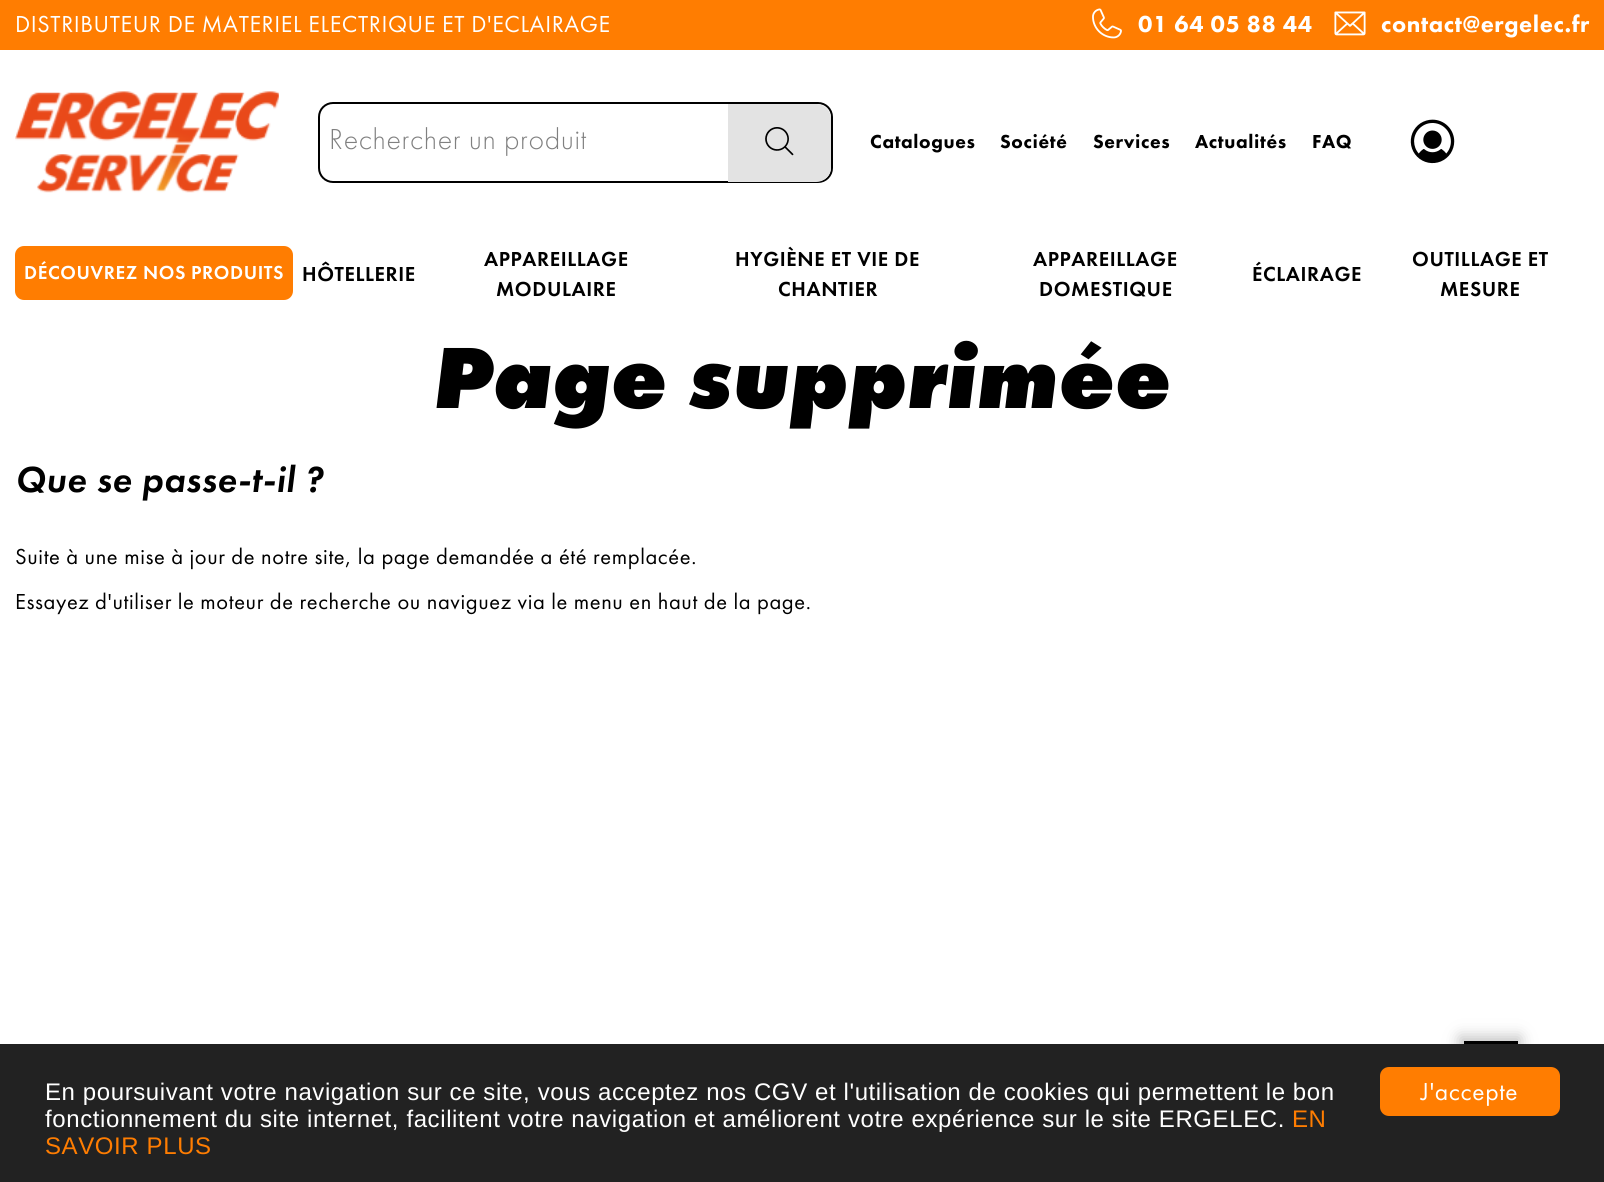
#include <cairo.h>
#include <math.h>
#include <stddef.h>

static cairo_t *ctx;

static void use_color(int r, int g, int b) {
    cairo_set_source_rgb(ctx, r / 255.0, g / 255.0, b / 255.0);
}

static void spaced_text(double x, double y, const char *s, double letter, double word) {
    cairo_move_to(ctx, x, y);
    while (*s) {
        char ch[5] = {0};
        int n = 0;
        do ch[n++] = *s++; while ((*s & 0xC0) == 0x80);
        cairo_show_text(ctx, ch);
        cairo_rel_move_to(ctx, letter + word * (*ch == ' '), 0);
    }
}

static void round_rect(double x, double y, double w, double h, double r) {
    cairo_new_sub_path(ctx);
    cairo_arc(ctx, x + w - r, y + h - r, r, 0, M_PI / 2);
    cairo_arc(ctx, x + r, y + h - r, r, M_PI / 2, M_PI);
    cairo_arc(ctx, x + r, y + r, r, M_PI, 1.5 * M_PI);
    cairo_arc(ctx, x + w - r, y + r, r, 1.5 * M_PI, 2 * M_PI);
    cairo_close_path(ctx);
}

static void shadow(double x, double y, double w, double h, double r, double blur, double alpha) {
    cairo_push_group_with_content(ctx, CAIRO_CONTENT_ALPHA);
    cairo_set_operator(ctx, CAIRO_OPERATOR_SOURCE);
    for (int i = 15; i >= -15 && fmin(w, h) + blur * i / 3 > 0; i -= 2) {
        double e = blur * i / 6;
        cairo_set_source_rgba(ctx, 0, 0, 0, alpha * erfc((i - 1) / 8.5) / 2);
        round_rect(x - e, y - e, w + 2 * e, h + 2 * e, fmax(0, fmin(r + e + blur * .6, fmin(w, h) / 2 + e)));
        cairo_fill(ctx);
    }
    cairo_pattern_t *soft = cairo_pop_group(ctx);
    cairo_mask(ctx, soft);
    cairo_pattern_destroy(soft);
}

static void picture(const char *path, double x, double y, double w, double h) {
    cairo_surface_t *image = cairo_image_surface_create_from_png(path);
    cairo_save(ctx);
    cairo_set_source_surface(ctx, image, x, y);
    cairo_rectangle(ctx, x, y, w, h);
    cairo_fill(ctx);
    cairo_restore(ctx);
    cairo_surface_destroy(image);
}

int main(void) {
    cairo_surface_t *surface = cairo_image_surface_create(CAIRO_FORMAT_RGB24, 1604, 1182);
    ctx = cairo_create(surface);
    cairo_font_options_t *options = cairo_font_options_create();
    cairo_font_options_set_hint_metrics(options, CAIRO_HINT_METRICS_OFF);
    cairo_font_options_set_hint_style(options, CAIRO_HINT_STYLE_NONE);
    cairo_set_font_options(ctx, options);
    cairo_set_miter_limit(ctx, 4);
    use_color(255, 255, 255);
    cairo_paint(ctx);
    use_color(255, 125, 1);
    cairo_rectangle(ctx, 0, 0, 1604, 50);
    cairo_fill(ctx);
    cairo_select_font_face(ctx, "Futura PT", CAIRO_FONT_SLANT_NORMAL, CAIRO_FONT_WEIGHT_NORMAL);
    cairo_set_font_size(ctx, 24);
    use_color(255, 255, 255);
    spaced_text(15, 32, "DISTRIBUTEUR DE MATERIEL ELECTRIQUE ET D'ECLAIRAGE", 0.6, 0);
    picture("img1.png", 1092, 8, 30, 31);
    cairo_select_font_face(ctx, "Futura PT Black", CAIRO_FONT_SLANT_NORMAL, CAIRO_FONT_WEIGHT_NORMAL);
    spaced_text(1138, 32, "01 64 05 88 44", 0.6, 0);
    picture("img2.png", 1334, 11, 32, 25);
    spaced_text(1381, 32, "contact@ergelec.fr", 0.6, 0);
    picture("img3.png", 15, 91, 264, 102);
    round_rect(319, 103, 513, 79, 14);
    use_color(0, 0, 0);
    cairo_stroke(ctx);
    cairo_select_font_face(ctx, "Futura PT Light", CAIRO_FONT_SLANT_NORMAL, CAIRO_FONT_WEIGHT_NORMAL);
    cairo_set_font_size(ctx, 30);
    use_color(128, 128, 128);
    spaced_text(329, 149, "Rechercher un produit", 0.6, 0);
    use_color(227, 227, 227);
    cairo_new_path(ctx);
    cairo_move_to(ctx, 728, 104);
    cairo_line_to(ctx, 816, 104);
    cairo_curve_to(ctx, 824.5, 104, 831, 110.5, 831, 119);
    cairo_line_to(ctx, 831, 167);
    cairo_curve_to(ctx, 831, 175.5, 824.5, 182, 816, 182);
    cairo_line_to(ctx, 728, 182);
    cairo_close_path(ctx);
    cairo_fill(ctx);
    picture("img4.png", 765, 127, 29, 29);
    cairo_select_font_face(ctx, "Futura PT Black", CAIRO_FONT_SLANT_NORMAL, CAIRO_FONT_WEIGHT_NORMAL);
    cairo_set_font_size(ctx, 19.5);
    use_color(0, 0, 0);
    spaced_text(870, 148, "Catalogues", 0.6, 0);
    spaced_text(1000, 148, "Société", 0.6, 0);
    spaced_text(1093, 148, "Services", 0.6, 0);
    spaced_text(1195, 148, "Actualités", 0.6, 0);
    spaced_text(1312, 148, "FAQ", 0.6, 0);
    picture("img5.png", 1410, 119, 45, 45);
    use_color(255, 125, 1);
    round_rect(15, 246, 278, 54, 9);
    cairo_fill(ctx);
    cairo_select_font_face(ctx, "Futura PT Medium", CAIRO_FONT_SLANT_NORMAL, CAIRO_FONT_WEIGHT_NORMAL);
    use_color(255, 255, 255);
    spaced_text(24, 279, "DÉCOUVREZ NOS PRODUITS", 0.6, 0);
    cairo_set_font_size(ctx, 21);
    use_color(0, 0, 0);
    spaced_text(302, 281, "HÔTELLERIE", 0.6, 0);
    spaced_text(484, 266, "APPAREILLAGE", 0.6, 0);
    spaced_text(496, 296, "MODULAIRE", 0.6, 0);
    spaced_text(735, 266, "HYGIÈNE ET VIE DE", 0.6, 0);
    spaced_text(778, 296, "CHANTIER", 0.6, 0);
    spaced_text(1033, 266, "APPAREILLAGE", 0.6, 0);
    spaced_text(1039, 296, "DOMESTIQUE", 0.6, 0);
    spaced_text(1252, 281, "ÉCLAIRAGE", 0.6, 0);
    spaced_text(1412, 266, "OUTILLAGE ET", 0.6, 0);
    spaced_text(1440, 296, "MESURE", 0.6, 0);
    cairo_select_font_face(ctx, "Futura PT ExtraBold", CAIRO_FONT_SLANT_ITALIC, CAIRO_FONT_WEIGHT_NORMAL);
    cairo_set_font_size(ctx, 90);
    spaced_text(433, 408, "Page supprimée", 0.6, 0);
    cairo_select_font_face(ctx, "Futura PT", CAIRO_FONT_SLANT_ITALIC, CAIRO_FONT_WEIGHT_NORMAL);
    cairo_set_font_size(ctx, 37.5);
    spaced_text(15, 492, "Que se passe-t-il ?", 0.6, 0);
    cairo_select_font_face(ctx, "Futura PT", CAIRO_FONT_SLANT_NORMAL, CAIRO_FONT_WEIGHT_NORMAL);
    cairo_set_font_size(ctx, 22.5);
    spaced_text(15, 564, "Suite à une mise à jour de notre site, la page demandée a été remplacée.", 0.6, 0);
    spaced_text(15, 609, "Essayez d'utiliser le moteur de recherche ou naviguez via le menu en haut de la page.", 0.6, 0);
    use_color(127, 127, 127);
    shadow(1460, 1037, 60, 60, 0, 7.5, 0.5);
    use_color(0, 0, 0);
    cairo_new_path(ctx);
    cairo_move_to(ctx, 1488, 1065);
    cairo_line_to(ctx, 1488, 1085);
    cairo_line_to(ctx, 1494, 1085);
    cairo_line_to(ctx, 1494, 1065);
    cairo_line_to(ctx, 1503, 1065);
    cairo_line_to(ctx, 1491, 1052);
    cairo_line_to(ctx, 1479, 1065);
    cairo_close_path(ctx);
    cairo_move_to(ctx, 1464, 1041);
    cairo_line_to(ctx, 1518, 1041);
    cairo_line_to(ctx, 1518, 1095);
    cairo_line_to(ctx, 1464, 1095);
    cairo_close_path(ctx);
    cairo_fill(ctx);
    use_color(34, 34, 34);
    cairo_rectangle(ctx, 0, 1044, 1604, 138);
    cairo_fill(ctx);
    cairo_select_font_face(ctx, "Liberation Sans", CAIRO_FONT_SLANT_NORMAL, CAIRO_FONT_WEIGHT_NORMAL);
    cairo_set_font_size(ctx, 24);
    use_color(255, 255, 255);
    spaced_text(45, 1100, "En poursuivant votre navigation sur ce site, vous acceptez nos CGV et l'utilisation de cookies qui permettent le bon", 0.6, 0);
    spaced_text(45, 1127, "fonctionnement du site internet, facilitent votre navigation et améliorent votre expérience sur le site ERGELEC.", 0.6, 0);
    use_color(255, 125, 1);
    spaced_text(1292, 1127, "EN", 0.6, 0);
    spaced_text(45, 1154, "SAVOIR PLUS", 0.6, 0);
    round_rect(1380, 1067, 180, 49, 9);
    cairo_fill(ctx);
    cairo_select_font_face(ctx, "Futura PT", CAIRO_FONT_SLANT_NORMAL, CAIRO_FONT_WEIGHT_NORMAL);
    cairo_set_font_size(ctx, 25.5);
    use_color(255, 255, 255);
    spaced_text(1421, 1100, "J'accepte", 0.6, 0);
    cairo_surface_write_to_png(surface, "result.png");
    cairo_font_options_destroy(options);
    cairo_destroy(ctx);
    cairo_surface_destroy(surface);
    return 0;
}
